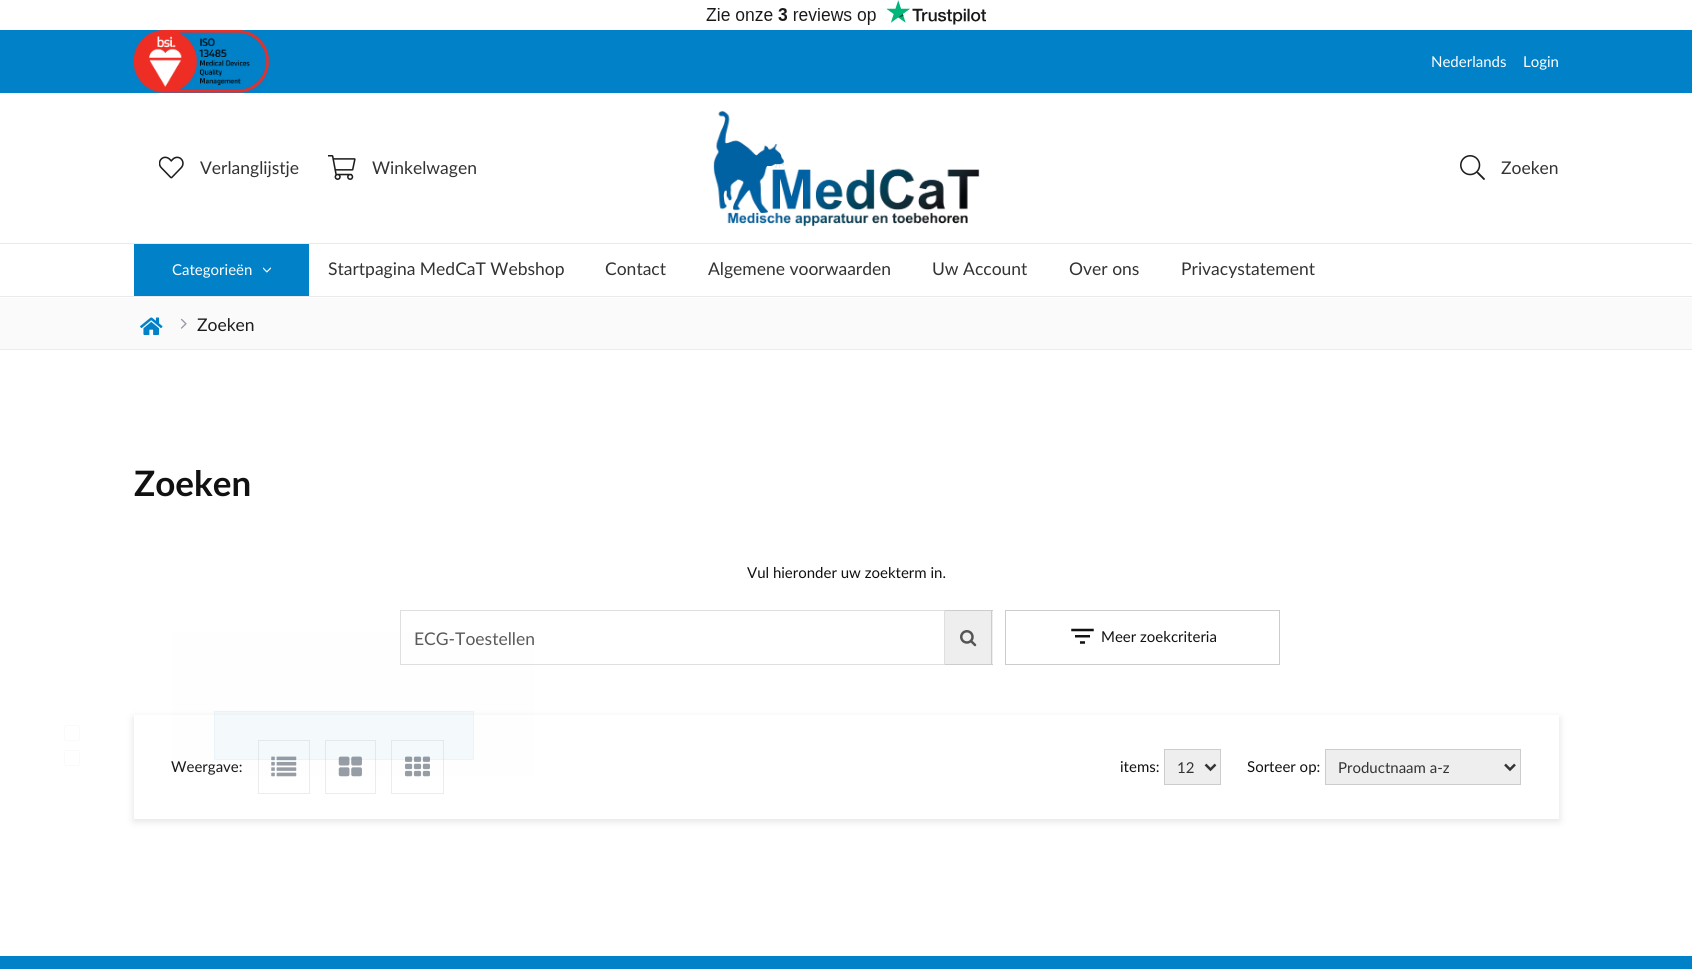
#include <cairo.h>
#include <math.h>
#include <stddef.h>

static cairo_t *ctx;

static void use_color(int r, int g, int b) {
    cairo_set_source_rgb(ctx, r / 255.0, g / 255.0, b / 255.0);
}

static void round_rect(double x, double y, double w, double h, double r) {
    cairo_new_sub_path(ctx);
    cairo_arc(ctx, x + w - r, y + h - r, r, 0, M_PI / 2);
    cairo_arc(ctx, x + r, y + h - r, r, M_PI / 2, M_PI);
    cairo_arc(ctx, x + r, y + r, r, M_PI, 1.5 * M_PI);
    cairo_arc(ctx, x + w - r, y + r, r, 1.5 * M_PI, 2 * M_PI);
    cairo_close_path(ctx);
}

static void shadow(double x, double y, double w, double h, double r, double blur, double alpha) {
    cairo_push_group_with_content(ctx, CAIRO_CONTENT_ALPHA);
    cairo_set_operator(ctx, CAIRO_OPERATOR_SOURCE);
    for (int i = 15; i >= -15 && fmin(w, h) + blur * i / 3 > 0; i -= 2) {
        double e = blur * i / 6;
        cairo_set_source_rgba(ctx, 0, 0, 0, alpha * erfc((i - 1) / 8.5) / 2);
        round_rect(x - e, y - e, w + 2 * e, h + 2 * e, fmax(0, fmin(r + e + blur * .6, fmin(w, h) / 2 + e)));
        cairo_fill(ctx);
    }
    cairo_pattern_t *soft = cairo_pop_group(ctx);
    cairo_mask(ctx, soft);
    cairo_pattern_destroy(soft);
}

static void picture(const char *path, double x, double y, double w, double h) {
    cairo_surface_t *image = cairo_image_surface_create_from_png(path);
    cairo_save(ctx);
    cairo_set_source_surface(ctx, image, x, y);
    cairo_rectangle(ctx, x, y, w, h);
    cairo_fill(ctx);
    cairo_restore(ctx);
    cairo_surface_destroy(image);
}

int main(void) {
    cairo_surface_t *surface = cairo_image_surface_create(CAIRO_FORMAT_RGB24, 1692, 969);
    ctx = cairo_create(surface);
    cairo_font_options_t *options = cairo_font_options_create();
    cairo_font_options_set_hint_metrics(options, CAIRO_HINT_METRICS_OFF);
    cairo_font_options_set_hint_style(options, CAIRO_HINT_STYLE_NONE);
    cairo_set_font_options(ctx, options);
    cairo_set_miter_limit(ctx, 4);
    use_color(255, 255, 255);
    cairo_paint(ctx);
    picture("img1.png", 706, 0, 281, 25);
    use_color(0, 129, 200);
    cairo_rectangle(ctx, 0, 30, 1692, 63);
    cairo_fill(ctx);
    picture("img2.png", 133, 30, 136, 63);
    cairo_select_font_face(ctx, "Lato", CAIRO_FONT_SLANT_NORMAL, CAIRO_FONT_WEIGHT_NORMAL);
    cairo_set_font_size(ctx, 15);
    use_color(255, 255, 255);
    cairo_move_to(ctx, 1431, 67);
    cairo_show_text(ctx, "Nederlands");
    cairo_move_to(ctx, 1523, 67);
    cairo_show_text(ctx, "Login");
    picture("img3.png", 159, 156, 25, 23);
    cairo_set_font_size(ctx, 17.5);
    use_color(51, 51, 51);
    cairo_move_to(ctx, 200, 174);
    cairo_show_text(ctx, "Verlanglijstje");
    picture("img4.png", 328, 155, 28, 25);
    cairo_move_to(ctx, 372, 174);
    cairo_show_text(ctx, "Winkelwagen");
    picture("img5.png", 713, 110, 267, 117);
    picture("img6.png", 1460, 155, 25, 25);
    cairo_move_to(ctx, 1501, 174);
    cairo_show_text(ctx, "Zoeken");
    use_color(234, 234, 234);
    cairo_rectangle(ctx, 0, 243, 1692, 1);
    cairo_fill(ctx);
    cairo_rectangle(ctx, 0, 296, 1692, 1);
    cairo_fill(ctx);
    use_color(0, 129, 200);
    cairo_rectangle(ctx, 134, 244, 175, 52);
    cairo_fill(ctx);
    cairo_set_font_size(ctx, 15);
    use_color(255, 255, 255);
    cairo_move_to(ctx, 172, 275);
    cairo_show_text(ctx, "Categorieën");
    picture("img7.png", 263, 267, 8, 6);
    cairo_set_font_size(ctx, 17.5);
    use_color(51, 51, 51);
    cairo_move_to(ctx, 328, 275);
    cairo_show_text(ctx, "Startpagina MedCaT Webshop");
    cairo_move_to(ctx, 605, 275);
    cairo_show_text(ctx, "Contact");
    cairo_move_to(ctx, 708, 275);
    cairo_show_text(ctx, "Algemene voorwaarden");
    cairo_move_to(ctx, 932, 275);
    cairo_show_text(ctx, "Uw Account");
    cairo_move_to(ctx, 1069, 275);
    cairo_show_text(ctx, "Over ons");
    cairo_move_to(ctx, 1181, 275);
    cairo_show_text(ctx, "Privacystatement");
    use_color(250, 250, 250);
    cairo_rectangle(ctx, 0, 298, 1692, 51);
    cairo_fill(ctx);
    use_color(236, 236, 236);
    cairo_rectangle(ctx, 0, 349, 1692, 1);
    cairo_fill(ctx);
    picture("img8.png", 140, 317, 23, 18);
    picture("img9.png", 180, 318, 7, 11);
    use_color(29, 29, 27);
    cairo_move_to(ctx, 197, 331);
    cairo_show_text(ctx, "Zoeken");
    cairo_select_font_face(ctx, "Lato", CAIRO_FONT_SLANT_NORMAL, CAIRO_FONT_WEIGHT_BOLD);
    cairo_set_font_size(ctx, 35);
    use_color(17, 17, 17);
    cairo_move_to(ctx, 134, 496);
    cairo_show_text(ctx, "Zoeken");
    cairo_select_font_face(ctx, "Lato", CAIRO_FONT_SLANT_NORMAL, CAIRO_FONT_WEIGHT_NORMAL);
    cairo_set_font_size(ctx, 15);
    cairo_move_to(ctx, 747, 578);
    cairo_show_text(ctx, "Vul hieronder uw zoekterm in.");
    cairo_rectangle(ctx, 400.5, 610.5, 544, 54);
    use_color(223, 223, 223);
    cairo_set_line_width(ctx, 1);
    cairo_stroke(ctx);
    cairo_set_font_size(ctx, 17.5);
    use_color(85, 85, 85);
    cairo_move_to(ctx, 414, 645);
    cairo_show_text(ctx, "ECG-Toestellen");
    use_color(238, 238, 238);
    cairo_rectangle(ctx, 945, 611, 48, 53);
    cairo_fill(ctx);
    use_color(204, 204, 204);
    cairo_rectangle(ctx, 945, 610, 48, 1);
    cairo_fill(ctx);
    cairo_rectangle(ctx, 991, 610, 1, 55);
    cairo_fill(ctx);
    cairo_rectangle(ctx, 945, 664, 48, 1);
    cairo_fill(ctx);
    picture("img10.png", 960, 630, 17, 17);
    cairo_rectangle(ctx, 1005.5, 610.5, 274, 54);
    cairo_stroke(ctx);
    picture("img11.png", 1071, 628, 23, 16);
    cairo_set_font_size(ctx, 15);
    use_color(17, 17, 17);
    cairo_move_to(ctx, 1101, 642);
    cairo_show_text(ctx, "Meer zoekcriteria");
    cairo_save(ctx);
    cairo_set_fill_rule(ctx, CAIRO_FILL_RULE_EVEN_ODD);
    cairo_new_path(ctx);
    cairo_move_to(ctx, 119, 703);
    cairo_line_to(ctx, 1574, 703);
    cairo_line_to(ctx, 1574, 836);
    cairo_line_to(ctx, 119, 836);
    cairo_close_path(ctx);
    cairo_move_to(ctx, 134, 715);
    cairo_line_to(ctx, 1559, 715);
    cairo_line_to(ctx, 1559, 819);
    cairo_line_to(ctx, 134, 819);
    cairo_close_path(ctx);
    cairo_clip(ctx);
    use_color(0, 0, 0);
    shadow(134, 718, 1425, 103, 0, 4.5, 0.12);
    cairo_restore(ctx);
    cairo_move_to(ctx, 171, 772);
    cairo_show_text(ctx, "Weergave:");
    cairo_rectangle(ctx, 258.5, 740.5, 51, 53);
    use_color(236, 236, 236);
    cairo_stroke(ctx);
    picture("img12.png", 271, 756, 26, 21);
    cairo_rectangle(ctx, 325.5, 740.5, 50, 53);
    cairo_stroke(ctx);
    picture("img13.png", 338, 756, 24, 21);
    cairo_rectangle(ctx, 391.5, 740.5, 52, 53);
    cairo_stroke(ctx);
    picture("img14.png", 405, 756, 25, 21);
    use_color(17, 17, 17);
    cairo_move_to(ctx, 1120, 772);
    cairo_show_text(ctx, "items:");
    use_color(238, 238, 238);
    cairo_rectangle(ctx, 1164.5, 749.5, 56, 35);
    cairo_fill_preserve(ctx);
    use_color(204, 204, 204);
    cairo_stroke(ctx);
    cairo_new_path(ctx);
    cairo_move_to(ctx, 1205.5, 764.5);
    cairo_line_to(ctx, 1210.5, 769.5);
    cairo_line_to(ctx, 1215.5, 764.5);
    use_color(51, 51, 51);
    cairo_set_line_width(ctx, 2.5);
    cairo_stroke(ctx);
    cairo_move_to(ctx, 1177, 773);
    cairo_show_text(ctx, "12");
    use_color(17, 17, 17);
    cairo_move_to(ctx, 1247, 772);
    cairo_show_text(ctx, "Sorteer op:");
    use_color(238, 238, 238);
    cairo_rectangle(ctx, 1325.5, 749.5, 195, 35);
    cairo_fill_preserve(ctx);
    use_color(204, 204, 204);
    cairo_set_line_width(ctx, 1);
    cairo_stroke(ctx);
    cairo_new_path(ctx);
    cairo_move_to(ctx, 1505, 764.5);
    cairo_line_to(ctx, 1510, 769.5);
    cairo_line_to(ctx, 1515, 764.5);
    use_color(51, 51, 51);
    cairo_set_line_width(ctx, 2.5);
    cairo_stroke(ctx);
    cairo_move_to(ctx, 1338, 773);
    cairo_show_text(ctx, "Productnaam a-z");
    cairo_set_source_rgba(ctx, 0.945, 0.945, 0.945, 0.04);
    cairo_rectangle(ctx, 172, 632, 362, 144);
    cairo_fill(ctx);
    round_rect(64.5, 725.5, 15, 15, 2);
    use_color(250, 250, 250);
    cairo_set_line_width(ctx, 1);
    cairo_stroke(ctx);
    round_rect(64.5, 750.5, 15, 15, 2);
    cairo_stroke(ctx);
    cairo_set_source_rgba(ctx, 0, 0.506, 0.784, 0.04);
    cairo_rectangle(ctx, 214, 711, 260, 49);
    cairo_fill(ctx);
    cairo_rectangle(ctx, 214.5, 711.5, 259, 48);
    cairo_stroke(ctx);
    use_color(0, 129, 200);
    cairo_rectangle(ctx, 0, 956, 1692, 13);
    cairo_fill(ctx);
    cairo_surface_write_to_png(surface, "result.png");
    cairo_font_options_destroy(options);
    cairo_destroy(ctx);
    cairo_surface_destroy(surface);
    return 0;
}
